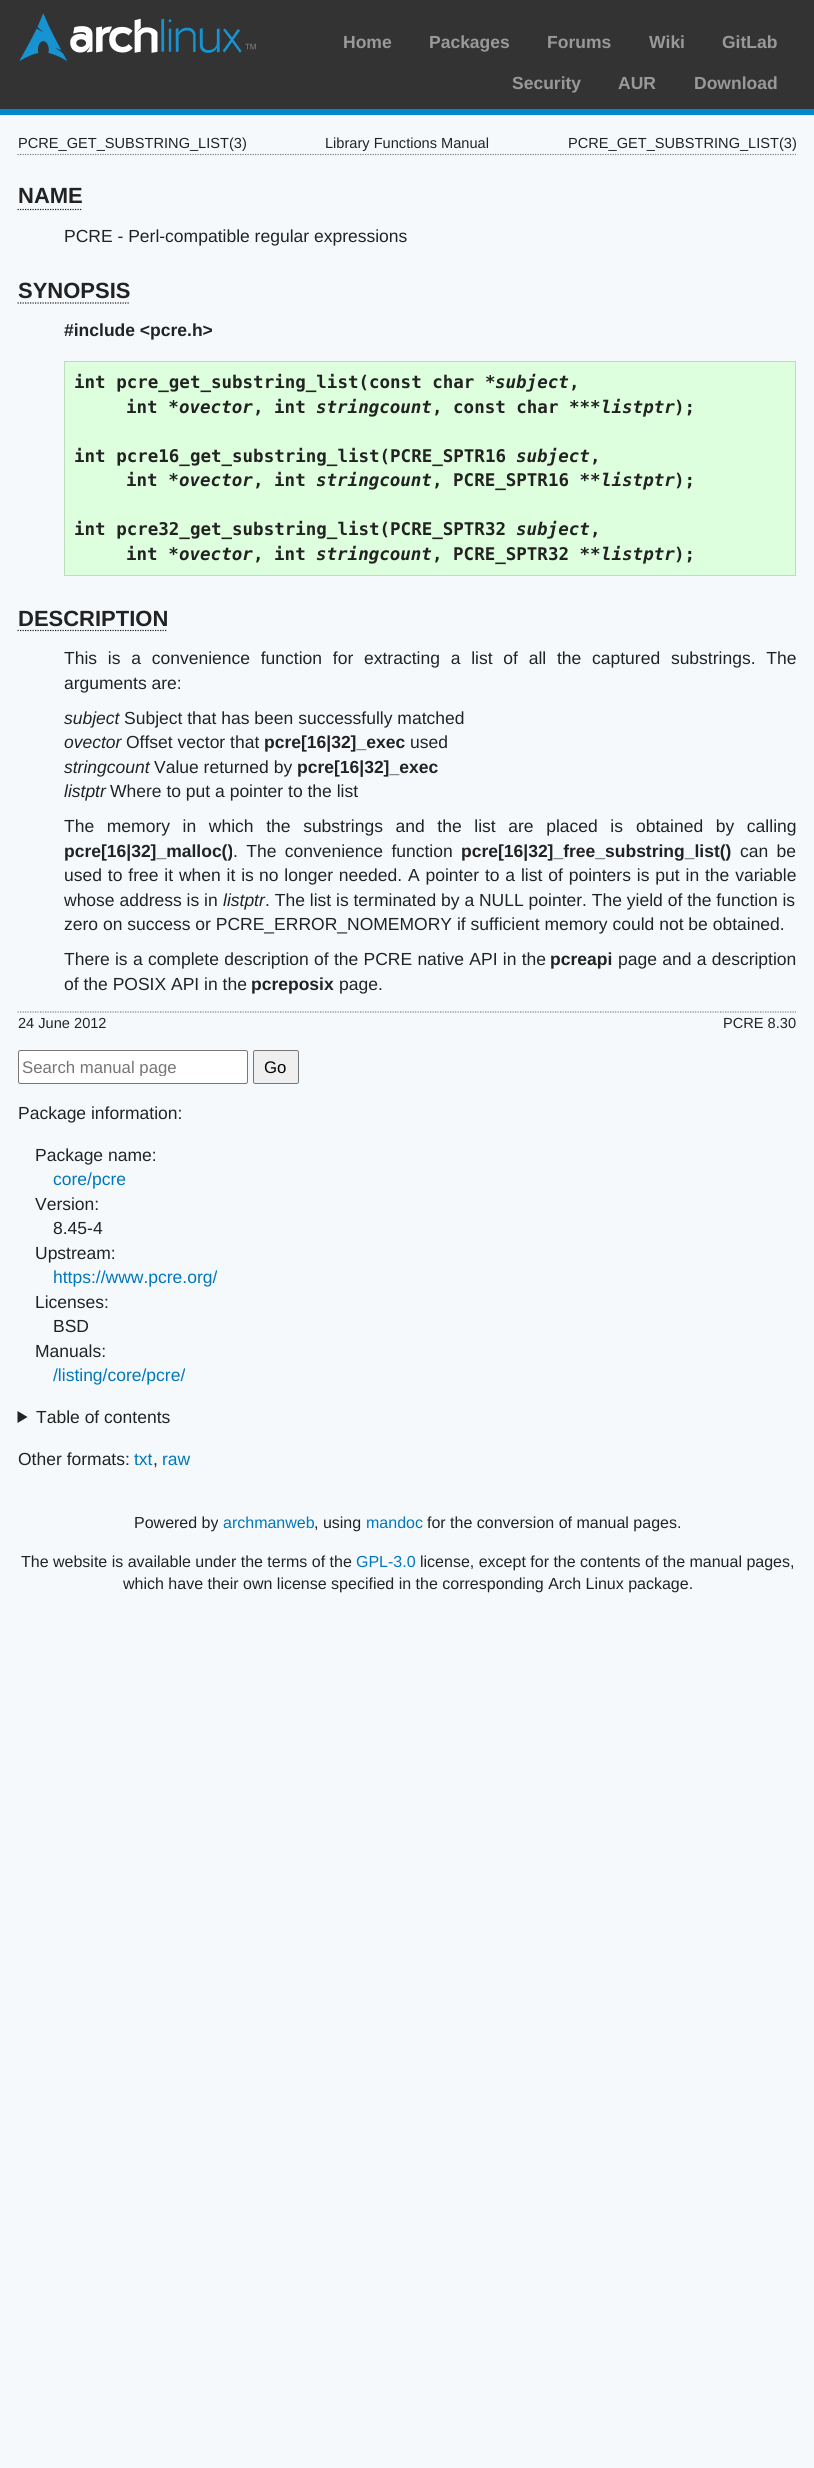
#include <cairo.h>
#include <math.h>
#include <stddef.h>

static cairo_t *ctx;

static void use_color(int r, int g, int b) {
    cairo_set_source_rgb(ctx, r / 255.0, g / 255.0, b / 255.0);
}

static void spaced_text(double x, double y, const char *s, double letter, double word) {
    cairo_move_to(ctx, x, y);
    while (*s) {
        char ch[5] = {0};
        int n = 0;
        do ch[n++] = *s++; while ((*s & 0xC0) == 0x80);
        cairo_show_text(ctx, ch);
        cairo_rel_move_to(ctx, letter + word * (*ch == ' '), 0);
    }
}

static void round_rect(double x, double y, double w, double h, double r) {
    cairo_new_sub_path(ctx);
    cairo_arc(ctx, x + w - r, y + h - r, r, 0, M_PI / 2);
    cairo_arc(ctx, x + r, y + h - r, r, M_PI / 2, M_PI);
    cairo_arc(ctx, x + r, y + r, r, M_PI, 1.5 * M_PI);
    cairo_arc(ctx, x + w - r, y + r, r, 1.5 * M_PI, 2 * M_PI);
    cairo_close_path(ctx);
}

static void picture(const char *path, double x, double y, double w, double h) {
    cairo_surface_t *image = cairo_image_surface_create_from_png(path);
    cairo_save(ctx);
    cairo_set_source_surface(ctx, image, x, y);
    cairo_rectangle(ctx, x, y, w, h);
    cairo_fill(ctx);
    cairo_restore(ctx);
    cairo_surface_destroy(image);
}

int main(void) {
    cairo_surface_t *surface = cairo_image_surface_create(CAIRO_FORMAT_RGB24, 814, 2468);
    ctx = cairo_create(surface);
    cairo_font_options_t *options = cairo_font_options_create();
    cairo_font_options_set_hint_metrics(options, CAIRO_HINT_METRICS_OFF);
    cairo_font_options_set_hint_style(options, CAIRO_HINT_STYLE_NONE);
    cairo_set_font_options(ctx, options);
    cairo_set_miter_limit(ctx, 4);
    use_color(246, 249, 252);
    cairo_paint(ctx);
    use_color(51, 51, 51);
    cairo_rectangle(ctx, 0, 0, 814, 109);
    cairo_fill(ctx);
    use_color(0, 136, 204);
    cairo_rectangle(ctx, 0, 109, 814, 6);
    cairo_fill(ctx);
    picture("img1.png", 19, 13, 237, 48);
    cairo_select_font_face(ctx, "Liberation Sans", CAIRO_FONT_SLANT_NORMAL, CAIRO_FONT_WEIGHT_BOLD);
    cairo_set_font_size(ctx, 17.5);
    use_color(153, 153, 153);
    cairo_move_to(ctx, 343, 48);
    cairo_show_text(ctx, "Home");
    cairo_move_to(ctx, 429, 48);
    cairo_show_text(ctx, "Packages");
    cairo_move_to(ctx, 547, 48);
    cairo_show_text(ctx, "Forums");
    cairo_move_to(ctx, 649, 48);
    cairo_show_text(ctx, "Wiki");
    cairo_move_to(ctx, 722, 48);
    cairo_show_text(ctx, "GitLab");
    cairo_move_to(ctx, 512, 89);
    cairo_show_text(ctx, "Security");
    cairo_move_to(ctx, 618, 89);
    cairo_show_text(ctx, "AUR");
    cairo_move_to(ctx, 694, 89);
    cairo_show_text(ctx, "Download");
    cairo_new_path(ctx);
    cairo_move_to(ctx, 17.5, 154.5);
    cairo_line_to(ctx, 796, 154.5);
    use_color(128, 128, 128);
    cairo_set_line_width(ctx, 1.2);
    cairo_set_dash(ctx, (double[]){1.25, 1.25}, 2, 0);
    cairo_stroke(ctx);
    cairo_select_font_face(ctx, "Liberation Sans", CAIRO_FONT_SLANT_NORMAL, CAIRO_FONT_WEIGHT_NORMAL);
    cairo_set_font_size(ctx, 14.6);
    use_color(34, 34, 34);
    cairo_move_to(ctx, 18, 148);
    cairo_show_text(ctx, "PCRE_GET_SUBSTRING_LIST(3)");
    cairo_move_to(ctx, 325, 148);
    cairo_show_text(ctx, "Library Functions Manual");
    cairo_move_to(ctx, 568, 148);
    cairo_show_text(ctx, "PCRE_GET_SUBSTRING_LIST(3)");
    cairo_select_font_face(ctx, "Liberation Sans", CAIRO_FONT_SLANT_NORMAL, CAIRO_FONT_WEIGHT_BOLD);
    cairo_set_font_size(ctx, 22);
    cairo_move_to(ctx, 18, 203);
    cairo_show_text(ctx, "NAME");
    cairo_new_path(ctx);
    cairo_move_to(ctx, 17.5, 209.5);
    cairo_line_to(ctx, 82.5, 209.5);
    cairo_stroke(ctx);
    cairo_select_font_face(ctx, "Liberation Sans", CAIRO_FONT_SLANT_NORMAL, CAIRO_FONT_WEIGHT_NORMAL);
    cairo_set_font_size(ctx, 17.5);
    cairo_move_to(ctx, 64, 242);
    cairo_show_text(ctx, "PCRE - Perl-compatible regular expressions");
    cairo_select_font_face(ctx, "Liberation Sans", CAIRO_FONT_SLANT_NORMAL, CAIRO_FONT_WEIGHT_BOLD);
    cairo_set_font_size(ctx, 22);
    cairo_move_to(ctx, 18, 298);
    cairo_show_text(ctx, "SYNOPSIS");
    cairo_new_path(ctx);
    cairo_move_to(ctx, 17.5, 303);
    cairo_line_to(ctx, 129, 303);
    cairo_stroke(ctx);
    cairo_set_font_size(ctx, 17.5);
    cairo_move_to(ctx, 64, 336);
    cairo_show_text(ctx, "#include <pcre.h>");
    use_color(221, 255, 221);
    cairo_rectangle(ctx, 64.5, 361.5, 731, 214);
    cairo_fill_preserve(ctx);
    use_color(187, 221, 187);
    cairo_set_line_width(ctx, 1);
    cairo_set_dash(ctx, NULL, 0, 0);
    cairo_stroke(ctx);
    cairo_select_font_face(ctx, "DejaVu Sans Mono", CAIRO_FONT_SLANT_NORMAL, CAIRO_FONT_WEIGHT_BOLD);
    use_color(34, 34, 34);
    cairo_move_to(ctx, 74, 388);
    cairo_show_text(ctx, "int pcre_get_substring_list(const char *");
    cairo_select_font_face(ctx, "DejaVu Sans Mono", CAIRO_FONT_SLANT_ITALIC, CAIRO_FONT_WEIGHT_BOLD);
    cairo_move_to(ctx, 495, 388);
    cairo_show_text(ctx, "subject");
    cairo_select_font_face(ctx, "DejaVu Sans Mono", CAIRO_FONT_SLANT_NORMAL, CAIRO_FONT_WEIGHT_BOLD);
    cairo_move_to(ctx, 569, 388);
    cairo_show_text(ctx, ",");
    cairo_move_to(ctx, 126, 413);
    cairo_show_text(ctx, "int *");
    cairo_select_font_face(ctx, "DejaVu Sans Mono", CAIRO_FONT_SLANT_ITALIC, CAIRO_FONT_WEIGHT_BOLD);
    cairo_move_to(ctx, 179, 413);
    cairo_show_text(ctx, "ovector");
    cairo_select_font_face(ctx, "DejaVu Sans Mono", CAIRO_FONT_SLANT_NORMAL, CAIRO_FONT_WEIGHT_BOLD);
    cairo_move_to(ctx, 253, 413);
    cairo_show_text(ctx, ", int");
    cairo_select_font_face(ctx, "DejaVu Sans Mono", CAIRO_FONT_SLANT_ITALIC, CAIRO_FONT_WEIGHT_BOLD);
    cairo_move_to(ctx, 316, 413);
    cairo_show_text(ctx, "stringcount");
    cairo_select_font_face(ctx, "DejaVu Sans Mono", CAIRO_FONT_SLANT_NORMAL, CAIRO_FONT_WEIGHT_BOLD);
    cairo_move_to(ctx, 432, 413);
    cairo_show_text(ctx, ", const char ***");
    cairo_select_font_face(ctx, "DejaVu Sans Mono", CAIRO_FONT_SLANT_ITALIC, CAIRO_FONT_WEIGHT_BOLD);
    cairo_move_to(ctx, 601, 413);
    cairo_show_text(ctx, "listptr");
    cairo_select_font_face(ctx, "DejaVu Sans Mono", CAIRO_FONT_SLANT_NORMAL, CAIRO_FONT_WEIGHT_BOLD);
    cairo_move_to(ctx, 674, 413);
    cairo_show_text(ctx, ");");
    cairo_move_to(ctx, 74, 462);
    cairo_show_text(ctx, "int pcre16_get_substring_list(PCRE_SPTR16");
    cairo_select_font_face(ctx, "DejaVu Sans Mono", CAIRO_FONT_SLANT_ITALIC, CAIRO_FONT_WEIGHT_BOLD);
    cairo_move_to(ctx, 516, 462);
    cairo_show_text(ctx, "subject");
    cairo_select_font_face(ctx, "DejaVu Sans Mono", CAIRO_FONT_SLANT_NORMAL, CAIRO_FONT_WEIGHT_BOLD);
    cairo_move_to(ctx, 590, 462);
    cairo_show_text(ctx, ",");
    cairo_move_to(ctx, 126, 486);
    cairo_show_text(ctx, "int *");
    cairo_select_font_face(ctx, "DejaVu Sans Mono", CAIRO_FONT_SLANT_ITALIC, CAIRO_FONT_WEIGHT_BOLD);
    cairo_move_to(ctx, 179, 486);
    cairo_show_text(ctx, "ovector");
    cairo_select_font_face(ctx, "DejaVu Sans Mono", CAIRO_FONT_SLANT_NORMAL, CAIRO_FONT_WEIGHT_BOLD);
    cairo_move_to(ctx, 253, 486);
    cairo_show_text(ctx, ", int");
    cairo_select_font_face(ctx, "DejaVu Sans Mono", CAIRO_FONT_SLANT_ITALIC, CAIRO_FONT_WEIGHT_BOLD);
    cairo_move_to(ctx, 316, 486);
    cairo_show_text(ctx, "stringcount");
    cairo_select_font_face(ctx, "DejaVu Sans Mono", CAIRO_FONT_SLANT_NORMAL, CAIRO_FONT_WEIGHT_BOLD);
    cairo_move_to(ctx, 432, 486);
    cairo_show_text(ctx, ", PCRE_SPTR16 **");
    cairo_select_font_face(ctx, "DejaVu Sans Mono", CAIRO_FONT_SLANT_ITALIC, CAIRO_FONT_WEIGHT_BOLD);
    cairo_move_to(ctx, 601, 486);
    cairo_show_text(ctx, "listptr");
    cairo_select_font_face(ctx, "DejaVu Sans Mono", CAIRO_FONT_SLANT_NORMAL, CAIRO_FONT_WEIGHT_BOLD);
    cairo_move_to(ctx, 674, 486);
    cairo_show_text(ctx, ");");
    cairo_move_to(ctx, 74, 535);
    cairo_show_text(ctx, "int pcre32_get_substring_list(PCRE_SPTR32");
    cairo_select_font_face(ctx, "DejaVu Sans Mono", CAIRO_FONT_SLANT_ITALIC, CAIRO_FONT_WEIGHT_BOLD);
    cairo_move_to(ctx, 516, 535);
    cairo_show_text(ctx, "subject");
    cairo_select_font_face(ctx, "DejaVu Sans Mono", CAIRO_FONT_SLANT_NORMAL, CAIRO_FONT_WEIGHT_BOLD);
    cairo_move_to(ctx, 590, 535);
    cairo_show_text(ctx, ",");
    cairo_move_to(ctx, 126, 560);
    cairo_show_text(ctx, "int *");
    cairo_select_font_face(ctx, "DejaVu Sans Mono", CAIRO_FONT_SLANT_ITALIC, CAIRO_FONT_WEIGHT_BOLD);
    cairo_move_to(ctx, 179, 560);
    cairo_show_text(ctx, "ovector");
    cairo_select_font_face(ctx, "DejaVu Sans Mono", CAIRO_FONT_SLANT_NORMAL, CAIRO_FONT_WEIGHT_BOLD);
    cairo_move_to(ctx, 253, 560);
    cairo_show_text(ctx, ", int");
    cairo_select_font_face(ctx, "DejaVu Sans Mono", CAIRO_FONT_SLANT_ITALIC, CAIRO_FONT_WEIGHT_BOLD);
    cairo_move_to(ctx, 316, 560);
    cairo_show_text(ctx, "stringcount");
    cairo_select_font_face(ctx, "DejaVu Sans Mono", CAIRO_FONT_SLANT_NORMAL, CAIRO_FONT_WEIGHT_BOLD);
    cairo_move_to(ctx, 432, 560);
    cairo_show_text(ctx, ", PCRE_SPTR32 **");
    cairo_select_font_face(ctx, "DejaVu Sans Mono", CAIRO_FONT_SLANT_ITALIC, CAIRO_FONT_WEIGHT_BOLD);
    cairo_move_to(ctx, 601, 560);
    cairo_show_text(ctx, "listptr");
    cairo_select_font_face(ctx, "DejaVu Sans Mono", CAIRO_FONT_SLANT_NORMAL, CAIRO_FONT_WEIGHT_BOLD);
    cairo_move_to(ctx, 674, 560);
    cairo_show_text(ctx, ");");
    cairo_select_font_face(ctx, "Liberation Sans", CAIRO_FONT_SLANT_NORMAL, CAIRO_FONT_WEIGHT_BOLD);
    cairo_set_font_size(ctx, 22);
    cairo_move_to(ctx, 18, 626);
    cairo_show_text(ctx, "DESCRIPTION");
    cairo_new_path(ctx);
    cairo_move_to(ctx, 17.5, 630.5);
    cairo_line_to(ctx, 167.5, 630.5);
    cairo_set_line_width(ctx, 1.2);
    cairo_set_dash(ctx, (double[]){1.25, 1.25}, 2, 0);
    cairo_stroke(ctx);
    cairo_select_font_face(ctx, "Liberation Sans", CAIRO_FONT_SLANT_NORMAL, CAIRO_FONT_WEIGHT_NORMAL);
    cairo_set_font_size(ctx, 17.5);
    spaced_text(64, 664, "This is a convenience function for extracting a list of all the", 0, 5.9);
    spaced_text(592, 664, "captured substrings. The", 0, 5.9);
    cairo_move_to(ctx, 64, 689);
    cairo_show_text(ctx, "arguments are:");
    cairo_select_font_face(ctx, "Liberation Sans", CAIRO_FONT_SLANT_ITALIC, CAIRO_FONT_WEIGHT_NORMAL);
    cairo_move_to(ctx, 64, 724);
    cairo_show_text(ctx, "subject");
    cairo_select_font_face(ctx, "Liberation Sans", CAIRO_FONT_SLANT_NORMAL, CAIRO_FONT_WEIGHT_NORMAL);
    cairo_move_to(ctx, 124, 724);
    cairo_show_text(ctx, "Subject that has been successfully matched");
    cairo_select_font_face(ctx, "Liberation Sans", CAIRO_FONT_SLANT_ITALIC, CAIRO_FONT_WEIGHT_NORMAL);
    cairo_move_to(ctx, 64, 748);
    cairo_show_text(ctx, "ovector");
    cairo_select_font_face(ctx, "Liberation Sans", CAIRO_FONT_SLANT_NORMAL, CAIRO_FONT_WEIGHT_NORMAL);
    cairo_move_to(ctx, 126, 748);
    cairo_show_text(ctx, "Offset vector that");
    cairo_select_font_face(ctx, "Liberation Sans", CAIRO_FONT_SLANT_NORMAL, CAIRO_FONT_WEIGHT_BOLD);
    cairo_move_to(ctx, 264, 748);
    cairo_show_text(ctx, "pcre[16|32]_exec");
    cairo_select_font_face(ctx, "Liberation Sans", CAIRO_FONT_SLANT_NORMAL, CAIRO_FONT_WEIGHT_NORMAL);
    cairo_move_to(ctx, 410, 748);
    cairo_show_text(ctx, "used");
    cairo_select_font_face(ctx, "Liberation Sans", CAIRO_FONT_SLANT_ITALIC, CAIRO_FONT_WEIGHT_NORMAL);
    cairo_move_to(ctx, 64, 773);
    cairo_show_text(ctx, "stringcount");
    cairo_select_font_face(ctx, "Liberation Sans", CAIRO_FONT_SLANT_NORMAL, CAIRO_FONT_WEIGHT_NORMAL);
    cairo_move_to(ctx, 154, 773);
    cairo_show_text(ctx, "Value returned by");
    cairo_select_font_face(ctx, "Liberation Sans", CAIRO_FONT_SLANT_NORMAL, CAIRO_FONT_WEIGHT_BOLD);
    cairo_move_to(ctx, 297, 773);
    cairo_show_text(ctx, "pcre[16|32]_exec");
    cairo_select_font_face(ctx, "Liberation Sans", CAIRO_FONT_SLANT_ITALIC, CAIRO_FONT_WEIGHT_NORMAL);
    cairo_move_to(ctx, 64, 797);
    cairo_show_text(ctx, "listptr");
    cairo_select_font_face(ctx, "Liberation Sans", CAIRO_FONT_SLANT_NORMAL, CAIRO_FONT_WEIGHT_NORMAL);
    cairo_move_to(ctx, 110, 797);
    cairo_show_text(ctx, "Where to put a pointer to the list");
    spaced_text(64, 832, "The memory in which the substrings and the list are placed is", 0, 7.75);
    spaced_text(636, 832, "obtained by calling", 0, 7.75);
    cairo_select_font_face(ctx, "Liberation Sans", CAIRO_FONT_SLANT_NORMAL, CAIRO_FONT_WEIGHT_BOLD);
    cairo_move_to(ctx, 64, 857);
    cairo_show_text(ctx, "pcre[16|32]_malloc()");
    cairo_select_font_face(ctx, "Liberation Sans", CAIRO_FONT_SLANT_NORMAL, CAIRO_FONT_WEIGHT_NORMAL);
    spaced_text(233, 857, ". The convenience function", 0, 3.5);
    cairo_select_font_face(ctx, "Liberation Sans", CAIRO_FONT_SLANT_NORMAL, CAIRO_FONT_WEIGHT_BOLD);
    cairo_move_to(ctx, 461, 857);
    cairo_show_text(ctx, "pcre[16|32]_free_substring_list()");
    cairo_select_font_face(ctx, "Liberation Sans", CAIRO_FONT_SLANT_NORMAL, CAIRO_FONT_WEIGHT_NORMAL);
    spaced_text(740, 857, "can be", 0, 3.5);
    spaced_text(64, 881, "used to free it when it is", 0, 1);
    spaced_text(259, 881, "no longer needed. A pointer to a list of pointers is put in the variable", 0, 1);
    cairo_move_to(ctx, 64, 906);
    cairo_show_text(ctx, "whose address is in");
    cairo_select_font_face(ctx, "Liberation Sans", CAIRO_FONT_SLANT_ITALIC, CAIRO_FONT_WEIGHT_NORMAL);
    cairo_move_to(ctx, 223, 906);
    cairo_show_text(ctx, "listptr");
    cairo_select_font_face(ctx, "Liberation Sans", CAIRO_FONT_SLANT_NORMAL, CAIRO_FONT_WEIGHT_NORMAL);
    cairo_move_to(ctx, 265, 906);
    cairo_show_text(ctx, ". The list is terminated by a NULL pointer. The yield of the function is");
    cairo_move_to(ctx, 64, 930);
    cairo_show_text(ctx, "zero on success or PCRE_ERROR_NOMEMORY if sufficient memory could not be obtained.");
    spaced_text(64, 965, "There is a complete description of the PCRE native API in the", 0, 0.4);
    cairo_select_font_face(ctx, "Liberation Sans", CAIRO_FONT_SLANT_NORMAL, CAIRO_FONT_WEIGHT_BOLD);
    cairo_move_to(ctx, 550, 965);
    cairo_show_text(ctx, "pcreapi");
    cairo_select_font_face(ctx, "Liberation Sans", CAIRO_FONT_SLANT_NORMAL, CAIRO_FONT_WEIGHT_NORMAL);
    spaced_text(618, 965, "page and a description", 0, 0.4);
    cairo_move_to(ctx, 64, 990);
    cairo_show_text(ctx, "of the POSIX API in the");
    cairo_select_font_face(ctx, "Liberation Sans", CAIRO_FONT_SLANT_NORMAL, CAIRO_FONT_WEIGHT_BOLD);
    cairo_move_to(ctx, 251, 990);
    cairo_show_text(ctx, "pcreposix");
    cairo_select_font_face(ctx, "Liberation Sans", CAIRO_FONT_SLANT_NORMAL, CAIRO_FONT_WEIGHT_NORMAL);
    cairo_move_to(ctx, 339, 990);
    cairo_show_text(ctx, "page.");
    cairo_new_path(ctx);
    cairo_move_to(ctx, 17.5, 1012);
    cairo_line_to(ctx, 796, 1012);
    use_color(128, 128, 128);
    cairo_stroke(ctx);
    cairo_set_font_size(ctx, 14.6);
    use_color(34, 34, 34);
    cairo_move_to(ctx, 18, 1028);
    cairo_show_text(ctx, "24 June 2012");
    cairo_move_to(ctx, 723, 1028);
    cairo_show_text(ctx, "PCRE 8.30");
    use_color(255, 255, 255);
    round_rect(18.5, 1050.5, 229, 33, 2);
    cairo_fill_preserve(ctx);
    use_color(118, 118, 118);
    cairo_set_line_width(ctx, 1);
    cairo_set_dash(ctx, NULL, 0, 0);
    cairo_stroke(ctx);
    cairo_save(ctx);
    cairo_rectangle(ctx, 21, 1058, 205, 18);
    cairo_clip(ctx);
    cairo_set_font_size(ctx, 16.75);
    use_color(117, 117, 117);
    cairo_move_to(ctx, 22, 1073);
    cairo_show_text(ctx, "Search manual page");
    cairo_restore(ctx);
    use_color(239, 239, 239);
    round_rect(253.5, 1050.5, 45, 33, 2);
    cairo_fill_preserve(ctx);
    use_color(118, 118, 118);
    cairo_stroke(ctx);
    cairo_set_font_size(ctx, 16.75);
    use_color(0, 0, 0);
    cairo_move_to(ctx, 264, 1073);
    cairo_show_text(ctx, "Go");
    cairo_set_font_size(ctx, 17.5);
    use_color(34, 34, 34);
    cairo_move_to(ctx, 18, 1119);
    cairo_show_text(ctx, "Package information:");
    cairo_move_to(ctx, 35, 1161);
    cairo_show_text(ctx, "Package name:");
    use_color(0, 119, 187);
    cairo_move_to(ctx, 53, 1185);
    cairo_show_text(ctx, "core/pcre");
    use_color(34, 34, 34);
    cairo_move_to(ctx, 35, 1210);
    cairo_show_text(ctx, "Version:");
    cairo_move_to(ctx, 53, 1234);
    cairo_show_text(ctx, "8.45-4");
    cairo_move_to(ctx, 35, 1259);
    cairo_show_text(ctx, "Upstream:");
    use_color(0, 119, 187);
    cairo_move_to(ctx, 53, 1283);
    cairo_show_text(ctx, "https://www.pcre.org/");
    use_color(34, 34, 34);
    cairo_move_to(ctx, 35, 1308);
    cairo_show_text(ctx, "Licenses:");
    cairo_move_to(ctx, 53, 1332);
    cairo_show_text(ctx, "BSD");
    cairo_move_to(ctx, 35, 1357);
    cairo_show_text(ctx, "Manuals:");
    use_color(0, 119, 187);
    cairo_move_to(ctx, 53, 1381);
    cairo_show_text(ctx, "/listing/core/pcre/");
    use_color(34, 34, 34);
    cairo_new_path(ctx);
    cairo_move_to(ctx, 17.5, 1411);
    cairo_line_to(ctx, 27.5, 1417);
    cairo_line_to(ctx, 17.5, 1423);
    cairo_close_path(ctx);
    cairo_fill(ctx);
    cairo_move_to(ctx, 36, 1423);
    cairo_show_text(ctx, "Table of contents");
    cairo_move_to(ctx, 18, 1465);
    cairo_show_text(ctx, "Other formats:");
    use_color(0, 119, 187);
    cairo_move_to(ctx, 134, 1465);
    cairo_show_text(ctx, "txt");
    use_color(34, 34, 34);
    cairo_move_to(ctx, 153, 1465);
    cairo_show_text(ctx, ",");
    use_color(0, 119, 187);
    cairo_move_to(ctx, 162, 1465);
    cairo_show_text(ctx, "raw");
    cairo_set_font_size(ctx, 16);
    use_color(34, 34, 34);
    cairo_move_to(ctx, 134, 1528);
    cairo_show_text(ctx, "Powered by");
    use_color(0, 119, 187);
    cairo_move_to(ctx, 223, 1528);
    cairo_show_text(ctx, "archmanweb");
    use_color(34, 34, 34);
    cairo_move_to(ctx, 314, 1528);
    cairo_show_text(ctx, ", using");
    use_color(0, 119, 187);
    cairo_move_to(ctx, 366, 1528);
    cairo_show_text(ctx, "mandoc");
    use_color(34, 34, 34);
    cairo_move_to(ctx, 427, 1528);
    cairo_show_text(ctx, "for the conversion of manual pages.");
    cairo_move_to(ctx, 21, 1567);
    cairo_show_text(ctx, "The website is available under the terms of the");
    use_color(0, 119, 187);
    cairo_move_to(ctx, 356, 1567);
    cairo_show_text(ctx, "GPL-3.0");
    use_color(34, 34, 34);
    cairo_move_to(ctx, 420, 1567);
    cairo_show_text(ctx, "license, except for the contents of the manual pages,");
    cairo_move_to(ctx, 123, 1589);
    cairo_show_text(ctx, "which have their own license specified in the corresponding Arch Linux package.");
    cairo_surface_write_to_png(surface, "result.png");
    cairo_font_options_destroy(options);
    cairo_destroy(ctx);
    cairo_surface_destroy(surface);
    return 0;
}
